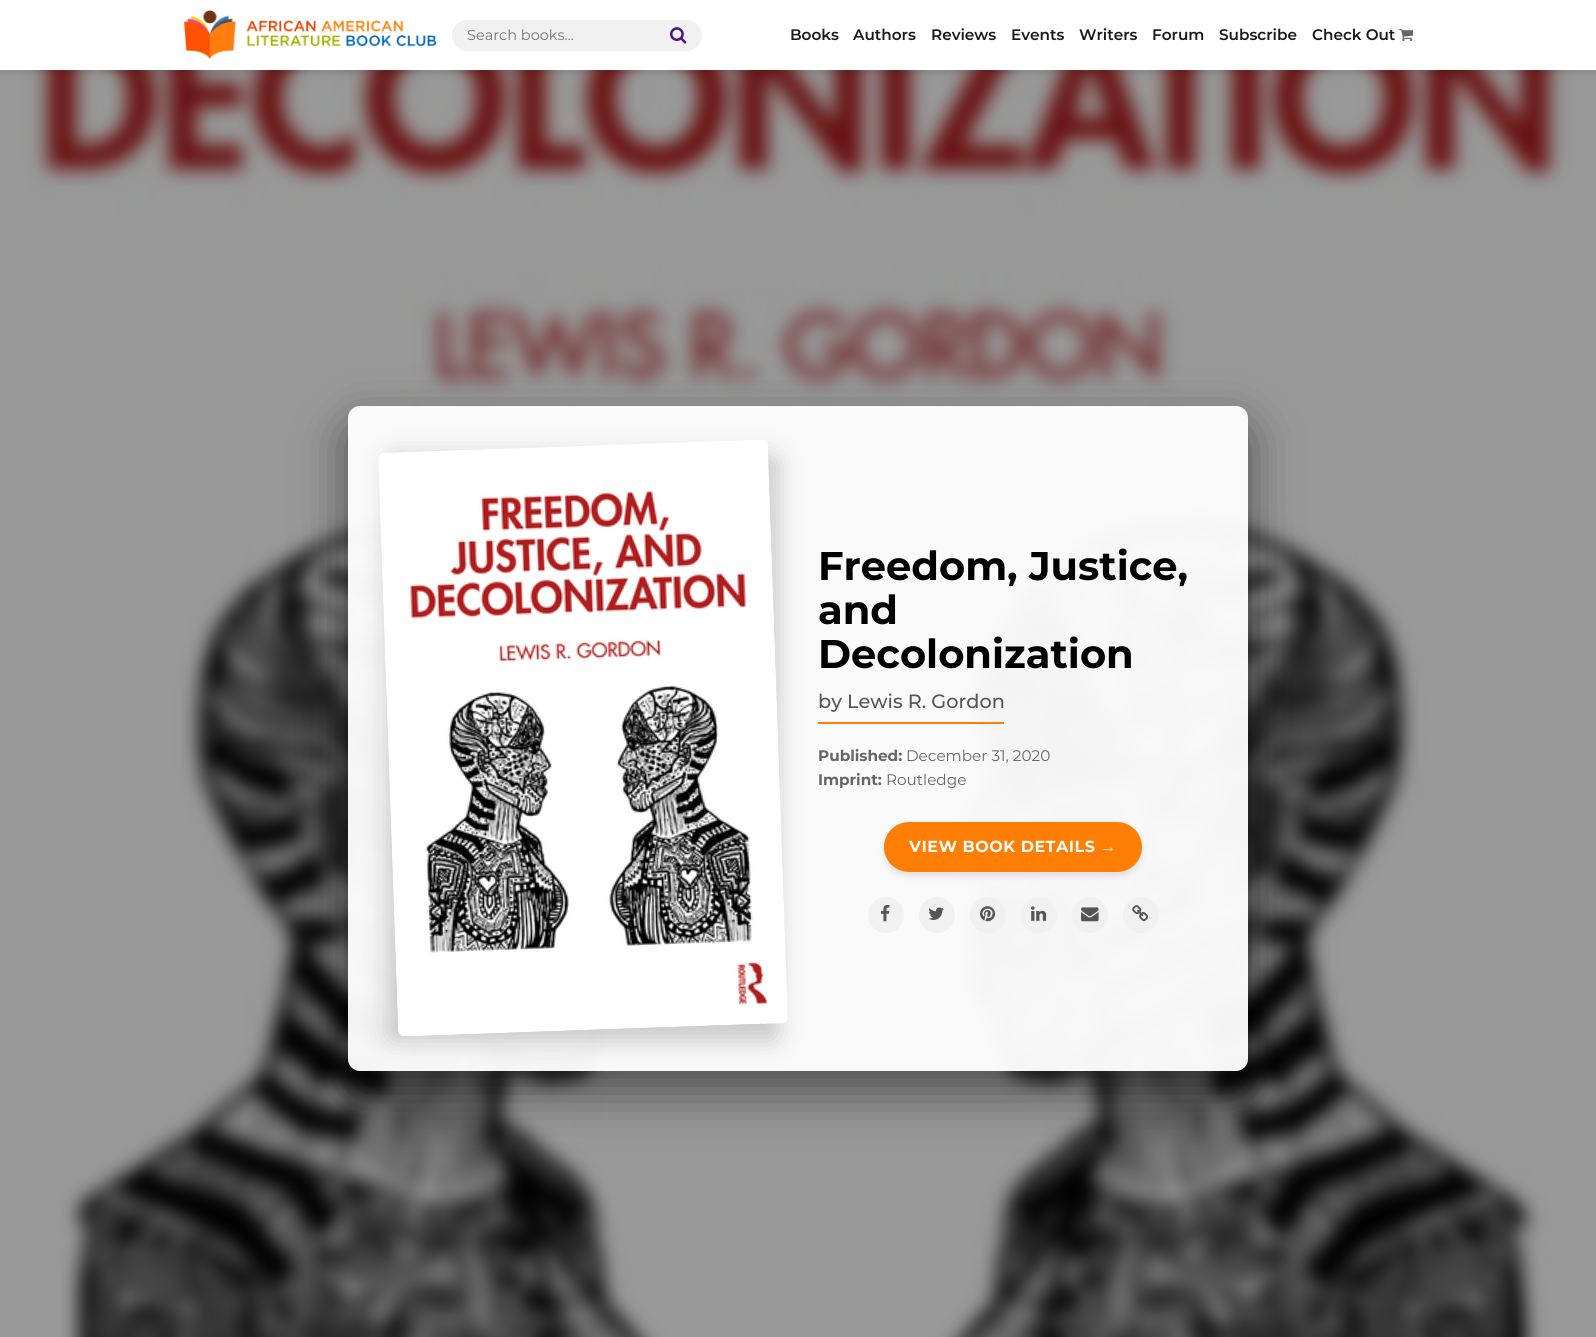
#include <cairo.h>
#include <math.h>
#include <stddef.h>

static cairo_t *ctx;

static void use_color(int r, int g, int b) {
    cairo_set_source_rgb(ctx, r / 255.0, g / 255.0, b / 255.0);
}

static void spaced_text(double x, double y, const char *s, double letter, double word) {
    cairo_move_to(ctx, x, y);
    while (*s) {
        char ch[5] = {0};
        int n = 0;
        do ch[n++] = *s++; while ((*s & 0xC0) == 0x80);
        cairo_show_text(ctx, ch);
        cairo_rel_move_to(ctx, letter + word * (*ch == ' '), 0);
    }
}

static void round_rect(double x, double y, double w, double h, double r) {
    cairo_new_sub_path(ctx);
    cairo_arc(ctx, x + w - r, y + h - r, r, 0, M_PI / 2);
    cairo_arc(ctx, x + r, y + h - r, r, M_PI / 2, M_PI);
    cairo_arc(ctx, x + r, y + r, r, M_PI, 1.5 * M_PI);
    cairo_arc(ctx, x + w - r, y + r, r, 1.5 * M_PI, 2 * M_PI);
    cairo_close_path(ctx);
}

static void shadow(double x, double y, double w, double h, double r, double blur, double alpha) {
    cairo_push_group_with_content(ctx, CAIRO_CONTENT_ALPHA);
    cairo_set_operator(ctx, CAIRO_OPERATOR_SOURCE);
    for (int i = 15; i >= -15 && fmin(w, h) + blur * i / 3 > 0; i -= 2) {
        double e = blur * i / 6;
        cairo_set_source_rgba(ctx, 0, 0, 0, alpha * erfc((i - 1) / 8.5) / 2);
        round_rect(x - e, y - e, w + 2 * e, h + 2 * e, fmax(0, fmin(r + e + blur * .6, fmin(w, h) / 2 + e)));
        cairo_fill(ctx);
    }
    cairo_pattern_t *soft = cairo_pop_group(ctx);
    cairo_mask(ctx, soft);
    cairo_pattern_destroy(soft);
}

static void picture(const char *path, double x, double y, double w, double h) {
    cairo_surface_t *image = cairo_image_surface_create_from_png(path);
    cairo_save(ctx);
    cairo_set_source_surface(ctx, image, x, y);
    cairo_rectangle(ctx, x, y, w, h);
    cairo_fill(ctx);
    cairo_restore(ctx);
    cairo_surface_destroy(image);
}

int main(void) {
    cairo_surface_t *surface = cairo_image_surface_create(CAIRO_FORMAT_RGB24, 1596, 1337);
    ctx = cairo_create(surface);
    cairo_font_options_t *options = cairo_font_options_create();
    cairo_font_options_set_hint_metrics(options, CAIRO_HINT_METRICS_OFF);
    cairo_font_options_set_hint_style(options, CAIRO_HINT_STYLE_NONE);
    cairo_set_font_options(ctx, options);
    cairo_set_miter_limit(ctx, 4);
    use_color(255, 255, 255);
    cairo_paint(ctx);
    picture("img4.png", 0, 70, 1596, 1267);
    use_color(0, 0, 0);
    shadow(0, 4, 1596, 70, 0, 3, 0.1);
    use_color(255, 255, 255);
    cairo_rectangle(ctx, 0, 0, 1596, 70);
    cairo_fill(ctx);
    picture("img1.png", 184, 10, 253, 49);
    use_color(241, 241, 241);
    round_rect(452, 20, 250, 31, 15.5);
    cairo_fill(ctx);
    cairo_select_font_face(ctx, "Montserrat", CAIRO_FONT_SLANT_NORMAL, CAIRO_FONT_WEIGHT_NORMAL);
    cairo_set_font_size(ctx, 14.5);
    use_color(117, 117, 117);
    cairo_move_to(ctx, 467, 40);
    cairo_show_text(ctx, "Search books...");
    picture("img2.png", 670, 27, 17, 17);
    cairo_select_font_face(ctx, "Montserrat SemiBold", CAIRO_FONT_SLANT_NORMAL, CAIRO_FONT_WEIGHT_NORMAL);
    cairo_set_font_size(ctx, 15.25);
    use_color(26, 26, 26);
    cairo_move_to(ctx, 790, 40);
    cairo_show_text(ctx, "Books");
    cairo_move_to(ctx, 853, 40);
    cairo_show_text(ctx, "Authors");
    cairo_move_to(ctx, 931, 40);
    cairo_show_text(ctx, "Reviews");
    cairo_move_to(ctx, 1011, 40);
    cairo_show_text(ctx, "Events");
    cairo_move_to(ctx, 1079, 40);
    cairo_show_text(ctx, "Writers");
    cairo_move_to(ctx, 1152, 40);
    cairo_show_text(ctx, "Forum");
    cairo_move_to(ctx, 1219, 40);
    cairo_show_text(ctx, "Subscribe");
    cairo_move_to(ctx, 1312, 40);
    cairo_show_text(ctx, "Check Out");
    picture("img3.png", 1399, 29, 15, 13);
    cairo_save(ctx);
    cairo_set_fill_rule(ctx, CAIRO_FILL_RULE_EVEN_ODD);
    cairo_new_path(ctx);
    cairo_move_to(ctx, 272, 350);
    cairo_line_to(ctx, 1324, 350);
    cairo_line_to(ctx, 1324, 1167);
    cairo_line_to(ctx, 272, 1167);
    cairo_close_path(ctx);
    cairo_move_to(ctx, 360, 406);
    cairo_line_to(ctx, 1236, 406);
    cairo_curve_to(ctx, 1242.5, 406, 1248, 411.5, 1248, 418);
    cairo_line_to(ctx, 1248, 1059);
    cairo_curve_to(ctx, 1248, 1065.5, 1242.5, 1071, 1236, 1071);
    cairo_line_to(ctx, 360, 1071);
    cairo_curve_to(ctx, 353.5, 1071, 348, 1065.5, 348, 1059);
    cairo_line_to(ctx, 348, 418);
    cairo_curve_to(ctx, 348, 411.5, 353.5, 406, 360, 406);
    cairo_close_path(ctx);
    cairo_clip(ctx);
    use_color(0, 0, 0);
    shadow(348, 426, 900, 665, 12, 25, 0.5);
    cairo_restore(ctx);
    cairo_set_source_rgba(ctx, 1, 1, 1, 0.95);
    round_rect(348, 406, 900, 665, 12);
    cairo_fill(ctx);
    use_color(0, 0, 0);
    shadow(388, 456, 390, 585, 6, 12.5, 0.2);
    picture("img5.png", 378, 440, 410, 596);
    cairo_select_font_face(ctx, "Montserrat", CAIRO_FONT_SLANT_NORMAL, CAIRO_FONT_WEIGHT_BOLD);
    cairo_set_font_size(ctx, 40);
    use_color(0, 0, 0);
    cairo_move_to(ctx, 818, 580);
    cairo_show_text(ctx, "Freedom, Justice,");
    cairo_move_to(ctx, 818, 624);
    cairo_show_text(ctx, "and");
    cairo_move_to(ctx, 818, 668);
    cairo_show_text(ctx, "Decolonization");
    use_color(255, 126, 3);
    cairo_rectangle(ctx, 818, 722, 186, 2);
    cairo_fill(ctx);
    cairo_select_font_face(ctx, "Montserrat Medium", CAIRO_FONT_SLANT_NORMAL, CAIRO_FONT_WEIGHT_NORMAL);
    cairo_set_font_size(ctx, 19.25);
    use_color(85, 85, 85);
    cairo_move_to(ctx, 818, 708);
    cairo_show_text(ctx, "by Lewis R. Gordon");
    cairo_select_font_face(ctx, "Montserrat", CAIRO_FONT_SLANT_NORMAL, CAIRO_FONT_WEIGHT_BOLD);
    cairo_set_font_size(ctx, 15.25);
    use_color(102, 102, 102);
    cairo_move_to(ctx, 818, 761);
    cairo_show_text(ctx, "Published:");
    cairo_select_font_face(ctx, "Montserrat", CAIRO_FONT_SLANT_NORMAL, CAIRO_FONT_WEIGHT_NORMAL);
    cairo_move_to(ctx, 906, 761);
    cairo_show_text(ctx, "December 31, 2020");
    cairo_select_font_face(ctx, "Montserrat", CAIRO_FONT_SLANT_NORMAL, CAIRO_FONT_WEIGHT_BOLD);
    cairo_move_to(ctx, 818, 785);
    cairo_show_text(ctx, "Imprint:");
    cairo_select_font_face(ctx, "Montserrat", CAIRO_FONT_SLANT_NORMAL, CAIRO_FONT_WEIGHT_NORMAL);
    cairo_move_to(ctx, 886, 785);
    cairo_show_text(ctx, "Routledge");
    use_color(0, 0, 0);
    shadow(884, 826, 258, 50, 25, 3, 0.1);
    use_color(255, 126, 3);
    round_rect(884, 822, 258, 50, 25);
    cairo_fill(ctx);
    cairo_select_font_face(ctx, "Montserrat", CAIRO_FONT_SLANT_NORMAL, CAIRO_FONT_WEIGHT_BOLD);
    cairo_set_font_size(ctx, 16);
    use_color(255, 255, 255);
    spaced_text(909, 852, "VIEW BOOK DETAILS", 0.5, 0);
    cairo_select_font_face(ctx, "Liberation Sans", CAIRO_FONT_SLANT_NORMAL, CAIRO_FONT_WEIGHT_BOLD);
    spaced_text(1100, 852, "→", 0.5, 0);
    use_color(241, 241, 241);
    cairo_new_path(ctx);
    cairo_arc(ctx, 886, 915, 18, 0, 2 * M_PI);
    cairo_fill(ctx);
    picture("img6.png", 880, 904, 10, 18);
    cairo_arc(ctx, 937, 915, 18, 0, 2 * M_PI);
    cairo_fill(ctx);
    picture("img7.png", 928, 907, 16, 13);
    cairo_arc(ctx, 988, 915, 18, 0, 2 * M_PI);
    cairo_fill(ctx);
    picture("img8.png", 980, 906, 16, 16);
    cairo_arc(ctx, 1039, 915, 18, 0, 2 * M_PI);
    cairo_fill(ctx);
    picture("img9.png", 1031, 906, 16, 15);
    cairo_arc(ctx, 1090, 915, 18, 0, 2 * M_PI);
    cairo_fill(ctx);
    picture("img10.png", 1081, 907, 18, 15);
    cairo_arc(ctx, 1141, 915, 18, 0, 2 * M_PI);
    cairo_fill(ctx);
    picture("img11.png", 1132, 905, 17, 17);
    cairo_surface_write_to_png(surface, "result.png");
    cairo_font_options_destroy(options);
    cairo_destroy(ctx);
    cairo_surface_destroy(surface);
    return 0;
}
